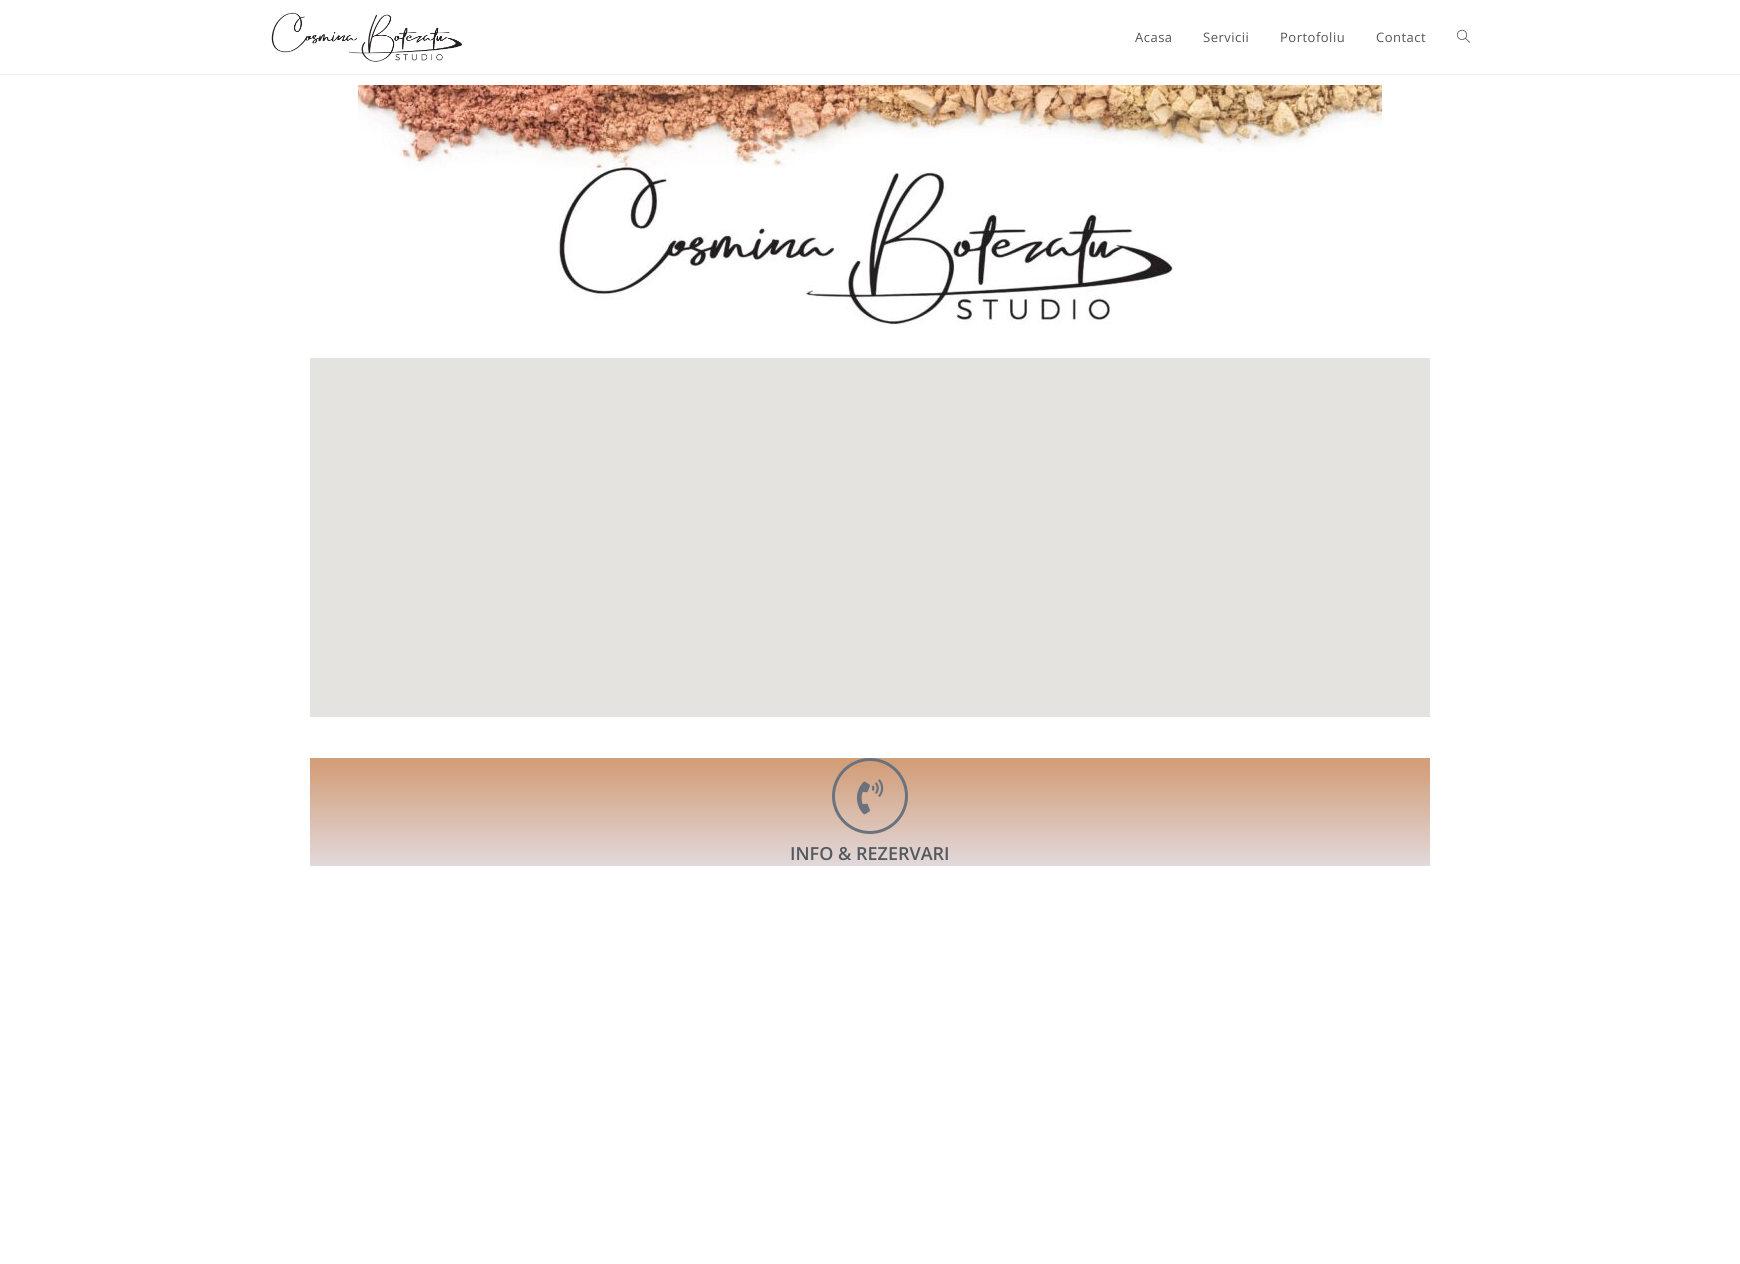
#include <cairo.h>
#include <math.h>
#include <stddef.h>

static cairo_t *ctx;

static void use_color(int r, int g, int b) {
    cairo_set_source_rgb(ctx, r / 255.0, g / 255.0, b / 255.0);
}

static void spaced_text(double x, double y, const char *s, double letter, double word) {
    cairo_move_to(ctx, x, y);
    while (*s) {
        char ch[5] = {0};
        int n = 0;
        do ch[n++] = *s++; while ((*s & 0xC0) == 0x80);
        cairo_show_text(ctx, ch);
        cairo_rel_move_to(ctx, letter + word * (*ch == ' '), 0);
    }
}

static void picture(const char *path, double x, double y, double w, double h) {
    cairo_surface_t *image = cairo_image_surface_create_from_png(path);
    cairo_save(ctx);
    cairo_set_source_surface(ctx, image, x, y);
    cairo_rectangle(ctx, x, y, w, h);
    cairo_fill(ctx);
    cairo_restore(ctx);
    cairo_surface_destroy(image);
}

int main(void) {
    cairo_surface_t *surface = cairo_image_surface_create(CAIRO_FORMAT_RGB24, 1740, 1264);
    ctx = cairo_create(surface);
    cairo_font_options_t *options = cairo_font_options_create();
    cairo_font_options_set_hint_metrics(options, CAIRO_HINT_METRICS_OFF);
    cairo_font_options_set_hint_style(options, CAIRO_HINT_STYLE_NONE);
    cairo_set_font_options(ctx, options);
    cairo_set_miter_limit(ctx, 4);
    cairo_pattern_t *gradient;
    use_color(255, 255, 255);
    cairo_paint(ctx);
    use_color(241, 241, 241);
    cairo_rectangle(ctx, 0, 74, 1740, 1);
    cairo_fill(ctx);
    picture("img1.png", 271, 12, 192, 50);
    cairo_select_font_face(ctx, "Open Sans", CAIRO_FONT_SLANT_NORMAL, CAIRO_FONT_WEIGHT_NORMAL);
    cairo_set_font_size(ctx, 13);
    use_color(85, 85, 85);
    spaced_text(1135, 42, "Acasa", 0.5, 0);
    spaced_text(1203, 42, "Servicii", 0.5, 0);
    spaced_text(1280, 42, "Portofoliu", 0.5, 0);
    spaced_text(1376, 42, "Contact", 0.5, 0);
    picture("img2.png", 1457, 29, 13, 14);
    picture("img3.png", 358, 85, 1024, 240);
    use_color(229, 227, 223);
    cairo_rectangle(ctx, 310, 358, 1120, 359);
    cairo_fill(ctx);
    gradient = cairo_pattern_create_linear(870, 758, 870, 866);
    cairo_pattern_add_color_stop_rgba(gradient, 0.07, 0.827, 0.624, 0.482, 1);
    cairo_pattern_add_color_stop_rgba(gradient, 1, 0.886, 0.851, 0.859, 1);
    cairo_set_source(ctx, gradient);
    cairo_pattern_destroy(gradient);
    cairo_rectangle(ctx, 310, 758, 1120, 108);
    cairo_fill(ctx);
    cairo_arc(ctx, 870, 796, 36.5, 0, 2 * M_PI);
    use_color(105, 114, 125);
    cairo_set_line_width(ctx, 3);
    cairo_stroke(ctx);
    picture("img4.png", 856, 779, 28, 36);
    cairo_select_font_face(ctx, "Open Sans SemiBold", CAIRO_FONT_SLANT_NORMAL, CAIRO_FONT_WEIGHT_NORMAL);
    cairo_set_font_size(ctx, 18);
    use_color(84, 89, 95);
    cairo_move_to(ctx, 790, 860);
    cairo_show_text(ctx, "INFO & REZERVARI");
    cairo_surface_write_to_png(surface, "result.png");
    cairo_font_options_destroy(options);
    cairo_destroy(ctx);
    cairo_surface_destroy(surface);
    return 0;
}
